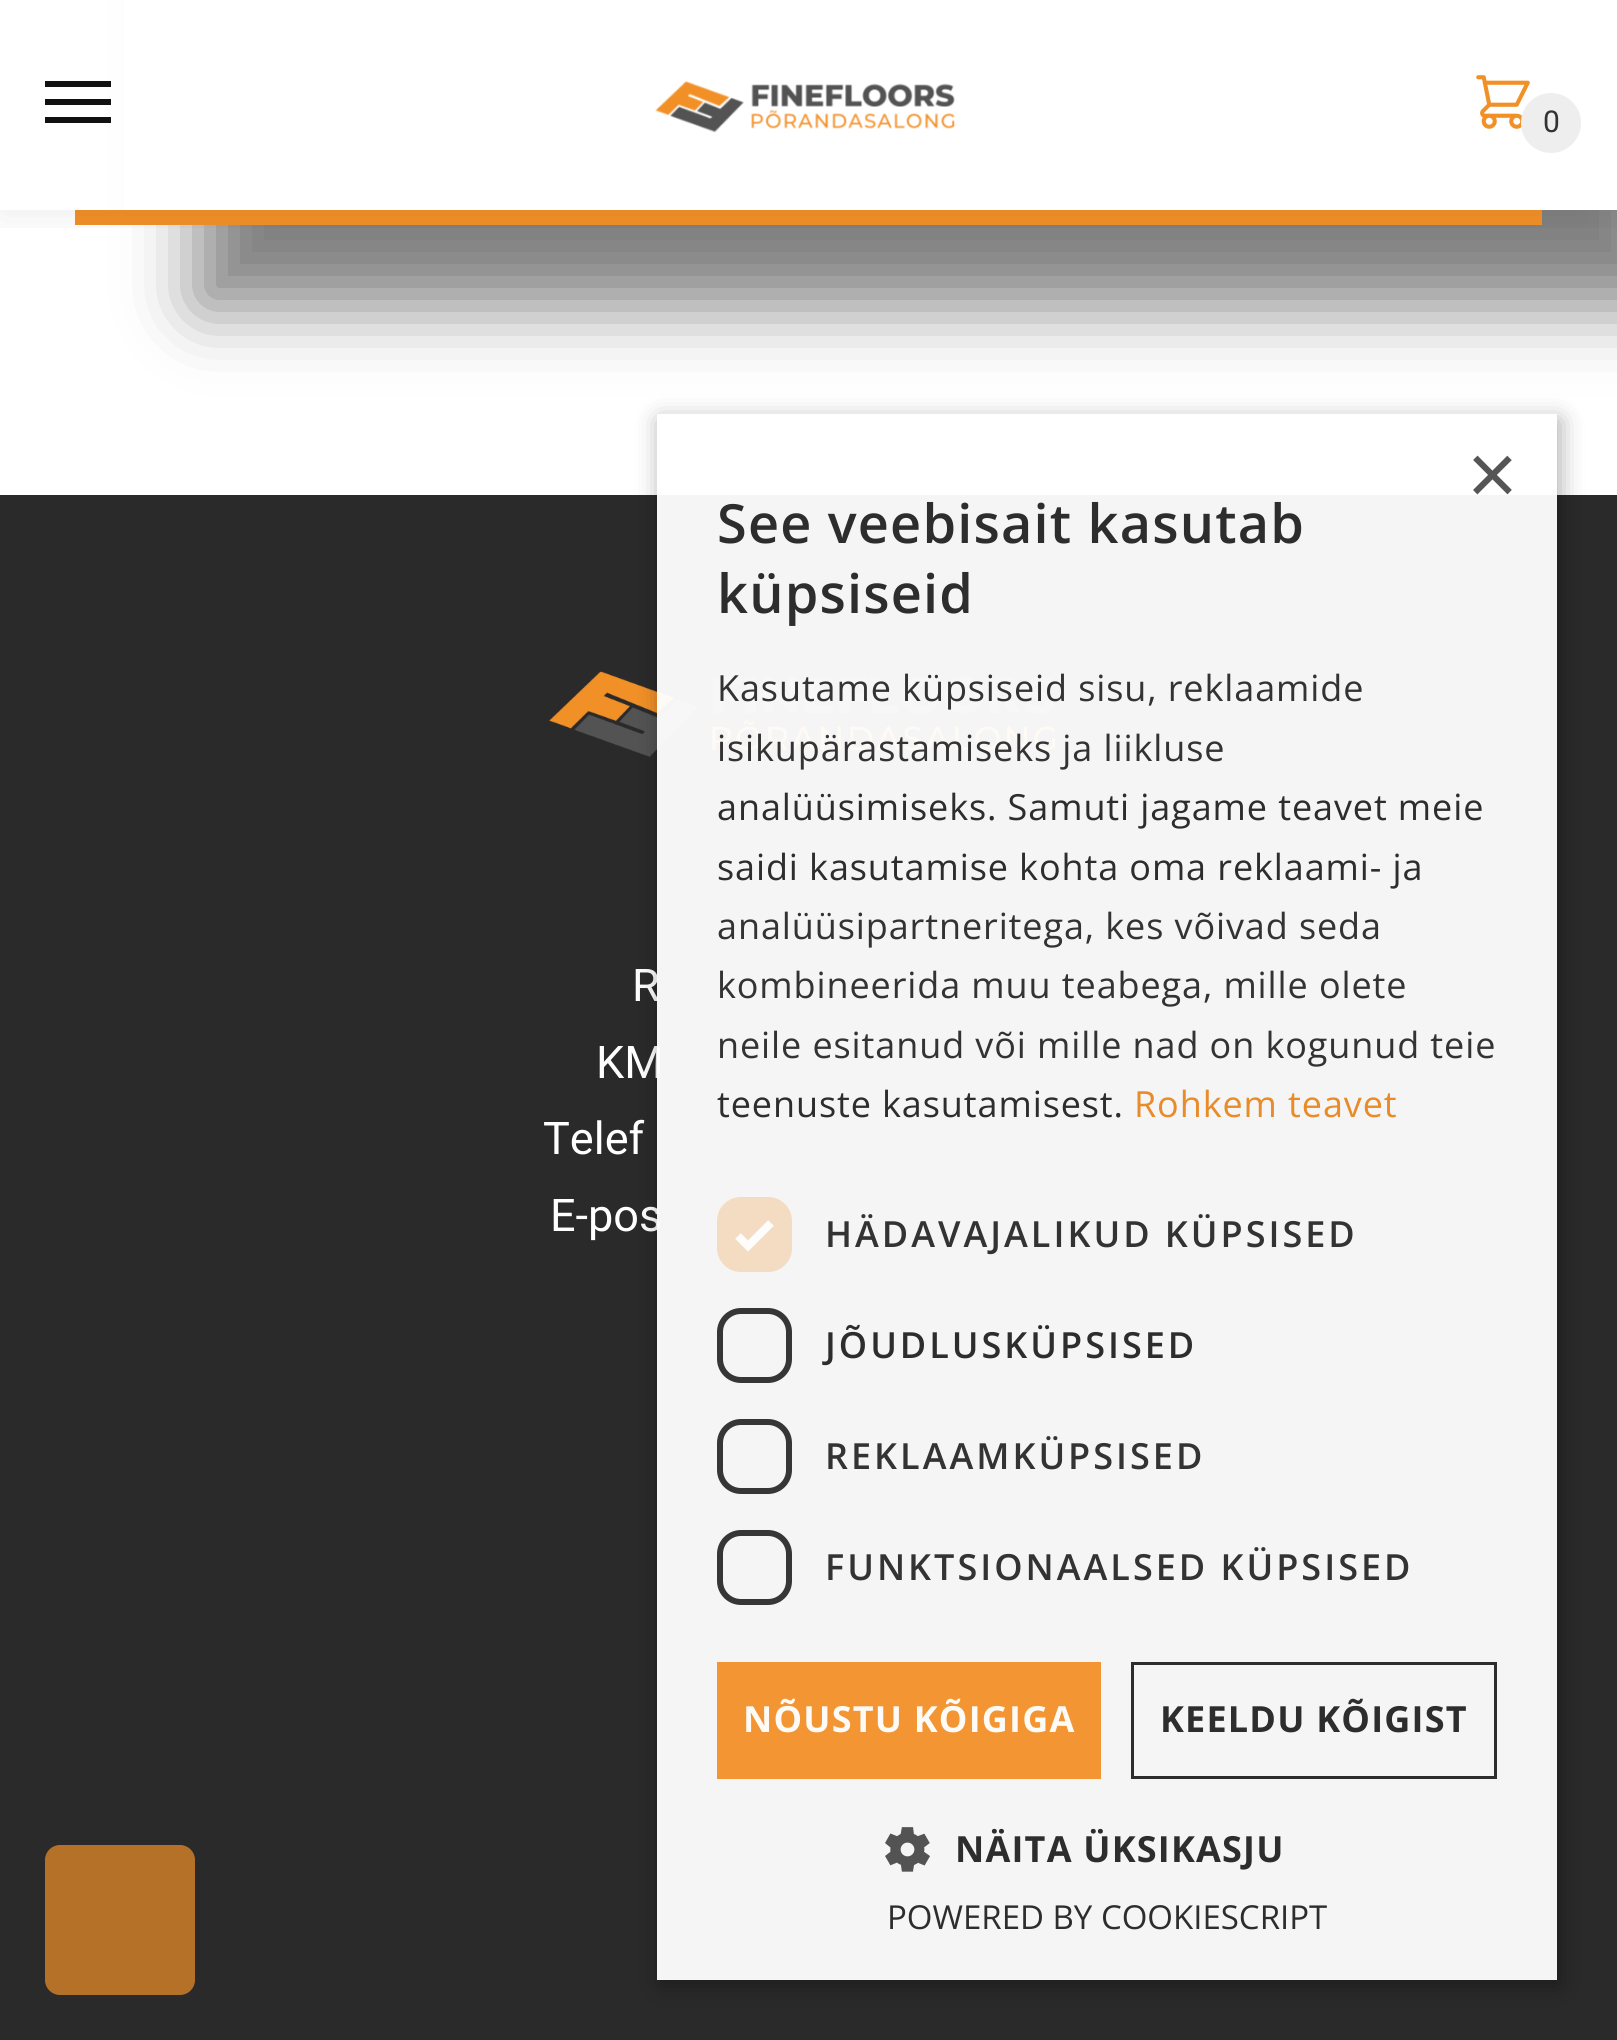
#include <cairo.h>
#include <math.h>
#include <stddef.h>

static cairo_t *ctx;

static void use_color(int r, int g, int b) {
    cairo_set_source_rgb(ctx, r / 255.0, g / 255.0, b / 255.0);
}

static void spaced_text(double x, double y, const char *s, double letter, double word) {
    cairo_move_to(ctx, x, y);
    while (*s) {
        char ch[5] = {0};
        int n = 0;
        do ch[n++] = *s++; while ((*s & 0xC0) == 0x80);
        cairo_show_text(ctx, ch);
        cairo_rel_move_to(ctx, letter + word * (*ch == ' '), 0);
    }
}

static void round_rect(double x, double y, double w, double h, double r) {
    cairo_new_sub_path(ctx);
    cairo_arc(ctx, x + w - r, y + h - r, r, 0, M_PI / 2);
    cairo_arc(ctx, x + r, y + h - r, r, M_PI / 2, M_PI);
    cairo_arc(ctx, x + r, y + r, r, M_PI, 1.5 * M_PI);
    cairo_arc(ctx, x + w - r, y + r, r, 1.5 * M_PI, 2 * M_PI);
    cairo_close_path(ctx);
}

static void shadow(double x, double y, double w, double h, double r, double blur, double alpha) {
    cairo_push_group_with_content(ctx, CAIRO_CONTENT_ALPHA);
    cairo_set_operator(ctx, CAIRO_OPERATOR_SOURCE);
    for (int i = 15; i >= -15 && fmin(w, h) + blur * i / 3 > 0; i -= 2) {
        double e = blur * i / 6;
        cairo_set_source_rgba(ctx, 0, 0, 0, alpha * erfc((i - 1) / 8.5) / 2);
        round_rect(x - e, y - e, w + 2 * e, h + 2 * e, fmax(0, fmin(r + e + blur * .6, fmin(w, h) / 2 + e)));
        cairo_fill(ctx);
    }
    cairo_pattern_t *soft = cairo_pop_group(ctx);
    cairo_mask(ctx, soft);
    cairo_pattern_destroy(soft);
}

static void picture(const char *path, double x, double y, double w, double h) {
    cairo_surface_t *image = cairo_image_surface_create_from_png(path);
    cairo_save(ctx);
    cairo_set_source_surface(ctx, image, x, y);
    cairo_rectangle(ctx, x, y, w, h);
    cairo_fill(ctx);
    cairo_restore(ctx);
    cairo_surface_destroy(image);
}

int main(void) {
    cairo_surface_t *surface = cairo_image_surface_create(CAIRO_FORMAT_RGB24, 1617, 2040);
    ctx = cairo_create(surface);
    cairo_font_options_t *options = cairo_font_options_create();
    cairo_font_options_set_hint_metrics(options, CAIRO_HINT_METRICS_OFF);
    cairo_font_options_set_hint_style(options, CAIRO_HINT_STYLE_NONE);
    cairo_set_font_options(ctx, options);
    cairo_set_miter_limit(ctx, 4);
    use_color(255, 255, 255);
    cairo_paint(ctx);
    use_color(0, 0, 0);
    shadow(198, -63, 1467, 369, 0, 36, 0.5);
    use_color(255, 255, 255);
    cairo_rectangle(ctx, 124, 0, 1493, 210);
    cairo_fill(ctx);
    use_color(242, 144, 40);
    cairo_rectangle(ctx, 75, 210, 1467, 15);
    cairo_fill(ctx);
    cairo_save(ctx);
    cairo_rectangle(ctx, 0, 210, 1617, 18);
    cairo_clip(ctx);
    use_color(0, 0, 0);
    shadow(0, 3, 1617, 210, 0, 22.5, 0.08);
    cairo_restore(ctx);
    use_color(17, 17, 17);
    cairo_rectangle(ctx, 45, 81, 66, 6);
    cairo_fill(ctx);
    cairo_rectangle(ctx, 45, 99, 66, 6);
    cairo_fill(ctx);
    cairo_rectangle(ctx, 45, 117, 66, 6);
    cairo_fill(ctx);
    picture("img1.png", 655, 81, 300, 52);
    picture("img2.png", 1476, 75, 54, 54);
    use_color(238, 238, 238);
    cairo_arc(ctx, 1551, 123, 30, 0, 2 * M_PI);
    cairo_fill(ctx);
    cairo_select_font_face(ctx, "Roboto", CAIRO_FONT_SLANT_NORMAL, CAIRO_FONT_WEIGHT_NORMAL);
    cairo_set_font_size(ctx, 30);
    use_color(51, 51, 51);
    cairo_move_to(ctx, 1543, 132);
    cairo_show_text(ctx, "0");
    use_color(42, 42, 42);
    cairo_rectangle(ctx, 0, 495, 1617, 1545);
    cairo_fill(ctx);
    picture("img3.png", 549, 671, 507, 86);
    cairo_set_font_size(ctx, 45);
    use_color(255, 255, 255);
    cairo_move_to(ctx, 632, 1001);
    cairo_show_text(ctx, "R");
    cairo_move_to(ctx, 596, 1078);
    cairo_show_text(ctx, "KM");
    cairo_move_to(ctx, 543, 1154);
    cairo_show_text(ctx, "Telef");
    cairo_move_to(ctx, 550, 1231);
    cairo_show_text(ctx, "E-pos");
    use_color(182, 113, 41);
    round_rect(45, 1845, 150, 150, 15);
    cairo_fill(ctx);
    cairo_save(ctx);
    cairo_set_fill_rule(ctx, CAIRO_FILL_RULE_EVEN_ODD);
    cairo_new_path(ctx);
    cairo_move_to(ctx, 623, 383);
    cairo_line_to(ctx, 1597, 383);
    cairo_line_to(ctx, 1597, 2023);
    cairo_line_to(ctx, 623, 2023);
    cairo_close_path(ctx);
    cairo_move_to(ctx, 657, 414);
    cairo_line_to(ctx, 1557, 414);
    cairo_line_to(ctx, 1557, 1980);
    cairo_line_to(ctx, 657, 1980);
    cairo_close_path(ctx);
    cairo_clip(ctx);
    use_color(0, 0, 0);
    shadow(660, 420, 900, 1566, 0, 12, 0.33);
    cairo_restore(ctx);
    cairo_set_source_rgba(ctx, 1, 1, 1, 0.95);
    cairo_rectangle(ctx, 657, 495, 900, 1485);
    cairo_fill(ctx);
    cairo_select_font_face(ctx, "Liberation Sans", CAIRO_FONT_SLANT_NORMAL, CAIRO_FONT_WEIGHT_NORMAL);
    cairo_set_font_size(ctx, 87);
    use_color(85, 85, 85);
    cairo_move_to(ctx, 1467, 504);
    cairo_show_text(ctx, "×");
    cairo_select_font_face(ctx, "Open Sans SemiBold", CAIRO_FONT_SLANT_NORMAL, CAIRO_FONT_WEIGHT_NORMAL);
    cairo_set_font_size(ctx, 54);
    use_color(45, 45, 45);
    spaced_text(717, 543, "See veebisait kasutab", 1.2, 0);
    spaced_text(717, 613, "küpsiseid", 1.2, 0);
    cairo_select_font_face(ctx, "Open Sans", CAIRO_FONT_SLANT_NORMAL, CAIRO_FONT_WEIGHT_NORMAL);
    cairo_set_font_size(ctx, 36);
    use_color(51, 51, 51);
    spaced_text(717, 701, "Kasutame küpsiseid sisu, reklaamide", 0.9, 0);
    spaced_text(717, 761, "isikupärastamiseks ja liikluse", 0.9, 0);
    use_color(45, 45, 45);
    spaced_text(717, 820, "analüüsimiseks. Samuti jagame teavet meie", 0.9, 0);
    spaced_text(717, 880, "saidi kasutamise kohta oma reklaami- ja", 0.9, 0);
    use_color(51, 51, 51);
    spaced_text(717, 939, "analüüsipartneritega, kes võivad seda", 0.9, 0);
    spaced_text(717, 998, "kombineerida muu teabega, mille olete", 0.9, 0);
    spaced_text(717, 1058, "neile esitanud või mille nad on kogunud teie", 0.9, 0);
    use_color(45, 45, 45);
    spaced_text(717, 1117, "teenuste kasutamisest.", 0.9, 0);
    use_color(232, 139, 40);
    spaced_text(1134, 1117, "Rohkem teavet", 0.9, 0);
    cairo_set_source_rgba(ctx, 0.949, 0.565, 0.157, 0.25);
    round_rect(717, 1197, 75, 75, 24);
    cairo_fill(ctx);
    cairo_new_path(ctx);
    cairo_move_to(ctx, 738, 1236);
    cairo_line_to(ctx, 748, 1246);
    cairo_line_to(ctx, 771, 1223);
    cairo_set_source_rgba(ctx, 1, 1, 1, 0.95);
    cairo_set_line_width(ctx, 7.9);
    cairo_stroke(ctx);
    cairo_select_font_face(ctx, "Open Sans SemiBold", CAIRO_FONT_SLANT_NORMAL, CAIRO_FONT_WEIGHT_NORMAL);
    use_color(51, 51, 51);
    spaced_text(825, 1247, "HÄDAVAJALIKUD KÜPSISED", 3, 0);
    round_rect(720, 1311, 69, 69, 21);
    cairo_set_source_rgba(ctx, 0.176, 0.176, 0.176, 0.95);
    cairo_set_line_width(ctx, 6);
    cairo_stroke(ctx);
    use_color(45, 45, 45);
    spaced_text(825, 1358, "JÕUDLUSKÜPSISED", 3, 0);
    round_rect(720, 1422, 69, 69, 21);
    cairo_set_source_rgba(ctx, 0.176, 0.176, 0.176, 0.95);
    cairo_stroke(ctx);
    use_color(51, 51, 51);
    spaced_text(825, 1469, "REKLAAMKÜPSISED", 3, 0);
    round_rect(720, 1533, 69, 69, 21);
    cairo_set_source_rgba(ctx, 0.176, 0.176, 0.176, 0.95);
    cairo_stroke(ctx);
    use_color(51, 51, 51);
    spaced_text(825, 1580, "FUNKTSIONAALSED KÜPSISED", 3, 0);
    cairo_set_source_rgba(ctx, 0.949, 0.565, 0.157, 0.95);
    cairo_rectangle(ctx, 717, 1662, 384, 117);
    cairo_fill(ctx);
    cairo_select_font_face(ctx, "Open Sans", CAIRO_FONT_SLANT_NORMAL, CAIRO_FONT_WEIGHT_BOLD);
    use_color(254, 250, 245);
    spaced_text(743, 1732, "NÕUSTU KÕIGIGA", 1.2, 0);
    cairo_rectangle(ctx, 1132.5, 1663.5, 363, 114);
    use_color(45, 45, 45);
    cairo_set_line_width(ctx, 3);
    cairo_stroke(ctx);
    spaced_text(1160, 1732, "KEELDU KÕIGIST", 1.2, 0);
    picture("img4.png", 885, 1827, 45, 45);
    spaced_text(955, 1862, "NÄITA ÜKSIKASJU", 1.2, 0);
    cairo_select_font_face(ctx, "Open Sans", CAIRO_FONT_SLANT_NORMAL, CAIRO_FONT_WEIGHT_NORMAL);
    cairo_set_font_size(ctx, 33);
    cairo_move_to(ctx, 887, 1929);
    cairo_show_text(ctx, "POWERED BY COOKIESCRIPT");
    cairo_surface_write_to_png(surface, "result.png");
    cairo_font_options_destroy(options);
    cairo_destroy(ctx);
    cairo_surface_destroy(surface);
    return 0;
}
